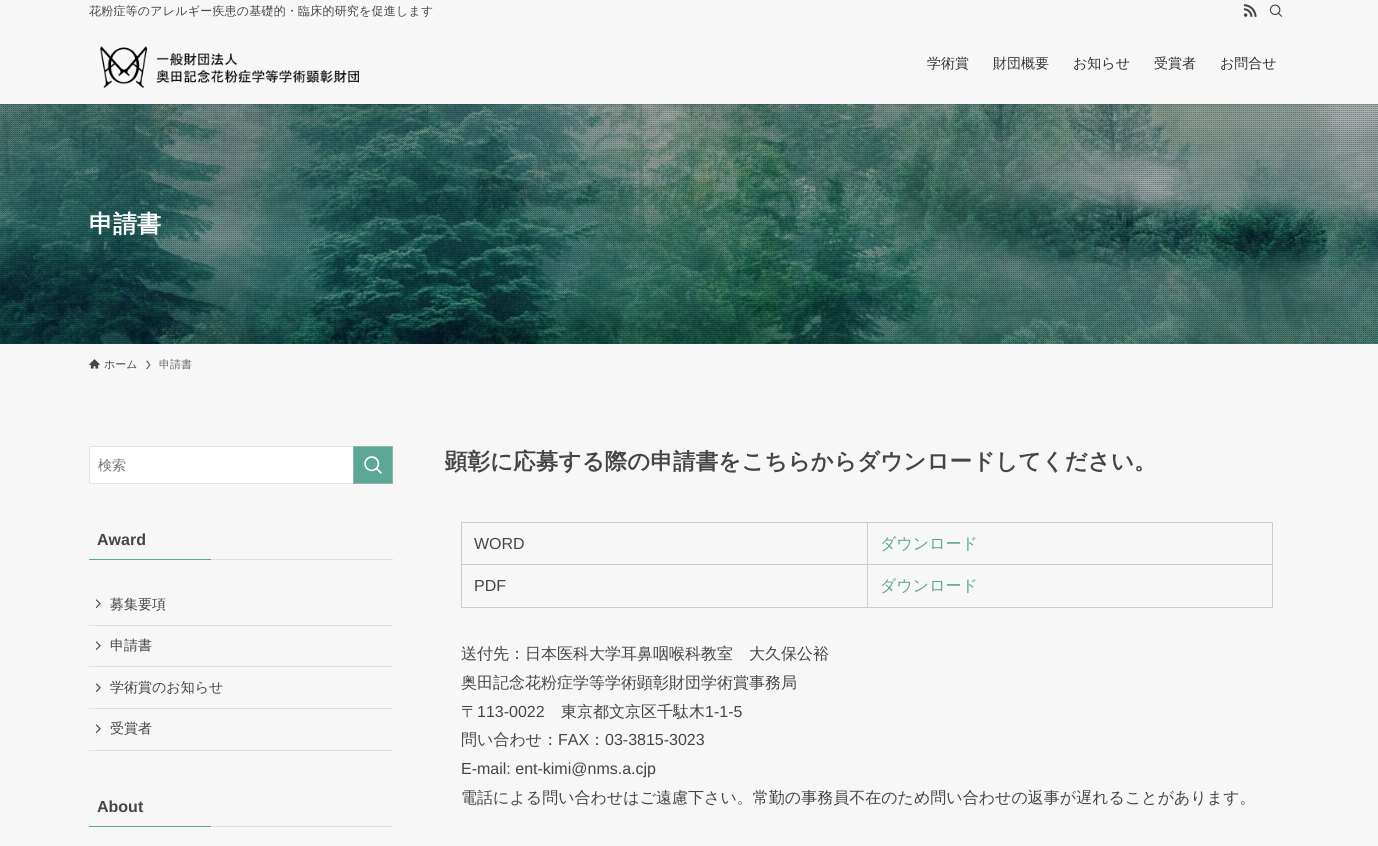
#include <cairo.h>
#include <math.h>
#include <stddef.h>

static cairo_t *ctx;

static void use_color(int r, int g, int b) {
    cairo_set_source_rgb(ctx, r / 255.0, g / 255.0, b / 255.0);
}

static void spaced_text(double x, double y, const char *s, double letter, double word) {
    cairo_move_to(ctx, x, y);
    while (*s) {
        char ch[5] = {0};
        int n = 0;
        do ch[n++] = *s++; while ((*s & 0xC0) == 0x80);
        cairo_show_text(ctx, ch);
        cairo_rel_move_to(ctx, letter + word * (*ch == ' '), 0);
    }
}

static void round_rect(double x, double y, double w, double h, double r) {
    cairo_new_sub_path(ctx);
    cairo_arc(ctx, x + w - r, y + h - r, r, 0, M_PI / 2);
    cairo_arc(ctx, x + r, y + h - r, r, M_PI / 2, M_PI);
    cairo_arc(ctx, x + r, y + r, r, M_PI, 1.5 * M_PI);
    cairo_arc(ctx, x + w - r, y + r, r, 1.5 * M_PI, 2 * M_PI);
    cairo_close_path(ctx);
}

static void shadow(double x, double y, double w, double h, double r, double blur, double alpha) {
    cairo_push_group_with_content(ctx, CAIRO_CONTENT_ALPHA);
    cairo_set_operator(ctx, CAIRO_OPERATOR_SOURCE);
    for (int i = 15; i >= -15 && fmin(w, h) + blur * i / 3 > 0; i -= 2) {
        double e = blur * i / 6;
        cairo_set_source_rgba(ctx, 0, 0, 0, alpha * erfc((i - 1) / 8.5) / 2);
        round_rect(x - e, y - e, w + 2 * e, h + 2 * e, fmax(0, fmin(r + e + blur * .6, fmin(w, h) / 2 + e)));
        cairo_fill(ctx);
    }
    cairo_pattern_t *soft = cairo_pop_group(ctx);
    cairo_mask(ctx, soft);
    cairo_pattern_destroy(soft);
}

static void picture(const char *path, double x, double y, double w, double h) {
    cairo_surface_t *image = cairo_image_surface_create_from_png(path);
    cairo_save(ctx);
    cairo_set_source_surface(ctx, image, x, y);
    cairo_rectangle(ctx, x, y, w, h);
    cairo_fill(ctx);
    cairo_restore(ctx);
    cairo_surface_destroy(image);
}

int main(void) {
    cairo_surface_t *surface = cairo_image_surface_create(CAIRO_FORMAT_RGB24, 1378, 846);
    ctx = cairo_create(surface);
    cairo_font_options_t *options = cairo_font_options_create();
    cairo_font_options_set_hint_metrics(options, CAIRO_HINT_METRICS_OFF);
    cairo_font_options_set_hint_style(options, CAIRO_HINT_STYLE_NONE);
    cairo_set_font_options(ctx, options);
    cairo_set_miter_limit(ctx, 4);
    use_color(247, 247, 247);
    cairo_paint(ctx);
    picture("img4.png", 0, 104, 1378, 240);
    picture("img5.png", 0, 104, 1378, 240);
    cairo_save(ctx);
    cairo_rectangle(ctx, 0, 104, 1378, 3);
    cairo_clip(ctx);
    use_color(0, 0, 0);
    shadow(0, 1, 1378, 104, 0, 2, 0.12);
    cairo_restore(ctx);
    cairo_select_font_face(ctx, "WenQuanYi Zen Hei Medium", CAIRO_FONT_SLANT_NORMAL, CAIRO_FONT_WEIGHT_NORMAL);
    cairo_set_font_size(ctx, 12);
    use_color(69, 69, 69);
    spaced_text(89, 15, "花粉症等のアレルギー疾患の基礎的・臨床的研究を促進します", 0.2, 0);
    picture("img1.png", 1243, 4, 14, 13);
    picture("img2.png", 1269, 4, 14, 13);
    picture("img3.png", 100, 46, 259, 42);
    cairo_set_font_size(ctx, 14);
    use_color(51, 51, 51);
    cairo_move_to(ctx, 927, 68);
    cairo_show_text(ctx, "学術賞");
    cairo_move_to(ctx, 993, 68);
    cairo_show_text(ctx, "財団概要");
    cairo_move_to(ctx, 1073, 68);
    cairo_show_text(ctx, "お知らせ");
    cairo_move_to(ctx, 1154, 68);
    cairo_show_text(ctx, "受賞者");
    cairo_move_to(ctx, 1220, 68);
    cairo_show_text(ctx, "お問合せ");
    cairo_select_font_face(ctx, "WenQuanYi Zen Hei", CAIRO_FONT_SLANT_NORMAL, CAIRO_FONT_WEIGHT_BOLD);
    cairo_set_font_size(ctx, 24);
    use_color(255, 255, 255);
    cairo_move_to(ctx, 89, 232);
    cairo_show_text(ctx, "申請書");
    picture("img6.png", 89, 359, 11, 10);
    cairo_select_font_face(ctx, "WenQuanYi Zen Hei Medium", CAIRO_FONT_SLANT_NORMAL, CAIRO_FONT_WEIGHT_NORMAL);
    cairo_set_font_size(ctx, 11);
    use_color(69, 69, 69);
    cairo_move_to(ctx, 104, 368);
    cairo_show_text(ctx, "ホーム");
    use_color(105, 105, 105);
    cairo_new_path(ctx);
    cairo_move_to(ctx, 147.5, 360.5);
    cairo_line_to(ctx, 146, 361);
    cairo_line_to(ctx, 149, 365);
    cairo_line_to(ctx, 146, 369);
    cairo_line_to(ctx, 147.5, 369);
    cairo_line_to(ctx, 150.5, 365);
    cairo_close_path(ctx);
    cairo_fill(ctx);
    cairo_move_to(ctx, 159, 368);
    cairo_show_text(ctx, "申請書");
    use_color(255, 255, 255);
    cairo_rectangle(ctx, 90, 447, 263, 36);
    cairo_fill(ctx);
    cairo_rectangle(ctx, 89.5, 446.5, 303, 37);
    use_color(227, 227, 227);
    cairo_set_line_width(ctx, 1);
    cairo_stroke(ctx);
    cairo_set_font_size(ctx, 14);
    use_color(117, 117, 117);
    cairo_move_to(ctx, 98, 470);
    cairo_show_text(ctx, "検索");
    use_color(93, 167, 151);
    cairo_rectangle(ctx, 353.5, 446.5, 39, 37);
    cairo_fill_preserve(ctx);
    use_color(146, 183, 175);
    cairo_stroke(ctx);
    picture("img7.png", 364, 456, 18, 18);
    cairo_select_font_face(ctx, "Liberation Sans", CAIRO_FONT_SLANT_NORMAL, CAIRO_FONT_WEIGHT_BOLD);
    cairo_set_font_size(ctx, 16);
    use_color(69, 69, 69);
    cairo_move_to(ctx, 97, 545);
    cairo_show_text(ctx, "Award");
    use_color(93, 167, 151);
    cairo_rectangle(ctx, 89, 559, 122, 1);
    cairo_fill(ctx);
    use_color(223, 223, 223);
    cairo_rectangle(ctx, 211, 559, 182, 1);
    cairo_fill(ctx);
    cairo_rectangle(ctx, 89, 625, 304, 1);
    cairo_fill(ctx);
    picture("img8.png", 95, 599, 6, 9);
    cairo_select_font_face(ctx, "WenQuanYi Zen Hei Medium", CAIRO_FONT_SLANT_NORMAL, CAIRO_FONT_WEIGHT_NORMAL);
    cairo_set_font_size(ctx, 14);
    use_color(69, 69, 69);
    cairo_move_to(ctx, 110, 609);
    cairo_show_text(ctx, "募集要項");
    use_color(223, 223, 223);
    cairo_rectangle(ctx, 89, 666, 304, 1);
    cairo_fill(ctx);
    picture("img8.png", 95, 641, 6, 9);
    use_color(69, 69, 69);
    cairo_move_to(ctx, 110, 650);
    cairo_show_text(ctx, "申請書");
    use_color(223, 223, 223);
    cairo_rectangle(ctx, 89, 708, 304, 1);
    cairo_fill(ctx);
    picture("img8.png", 95, 683, 6, 9);
    use_color(69, 69, 69);
    cairo_move_to(ctx, 110, 692);
    cairo_show_text(ctx, "学術賞のお知らせ");
    use_color(223, 223, 223);
    cairo_rectangle(ctx, 89, 750, 304, 1);
    cairo_fill(ctx);
    picture("img8.png", 95, 724, 6, 9);
    use_color(69, 69, 69);
    cairo_move_to(ctx, 110, 733);
    cairo_show_text(ctx, "受賞者");
    cairo_select_font_face(ctx, "Liberation Sans", CAIRO_FONT_SLANT_NORMAL, CAIRO_FONT_WEIGHT_BOLD);
    cairo_set_font_size(ctx, 16);
    cairo_move_to(ctx, 97, 812);
    cairo_show_text(ctx, "About");
    use_color(93, 167, 151);
    cairo_rectangle(ctx, 89, 826, 122, 1);
    cairo_fill(ctx);
    use_color(223, 223, 223);
    cairo_rectangle(ctx, 211, 826, 182, 1);
    cairo_fill(ctx);
    cairo_select_font_face(ctx, "WenQuanYi Zen Hei", CAIRO_FONT_SLANT_NORMAL, CAIRO_FONT_WEIGHT_BOLD);
    cairo_set_font_size(ctx, 22.4);
    use_color(69, 69, 69);
    spaced_text(445, 469, "顕彰に応募する際の申請書をこちらからダウンロードしてください。", 0.2, 0);
    use_color(204, 204, 204);
    cairo_rectangle(ctx, 867, 522, 406, 1);
    cairo_fill(ctx);
    cairo_rectangle(ctx, 867, 564, 406, 1);
    cairo_fill(ctx);
    cairo_rectangle(ctx, 1272, 564, 1, 44);
    cairo_fill(ctx);
    cairo_rectangle(ctx, 867, 607, 406, 1);
    cairo_fill(ctx);
    cairo_rectangle(ctx, 867, 564, 1, 44);
    cairo_fill(ctx);
    cairo_rectangle(ctx, 461, 564, 407, 1);
    cairo_fill(ctx);
    cairo_rectangle(ctx, 867, 522, 1, 43);
    cairo_fill(ctx);
    cairo_rectangle(ctx, 461, 522, 407, 1);
    cairo_fill(ctx);
    cairo_rectangle(ctx, 461, 607, 407, 1);
    cairo_fill(ctx);
    cairo_rectangle(ctx, 461, 564, 1, 44);
    cairo_fill(ctx);
    cairo_rectangle(ctx, 461, 522, 1, 43);
    cairo_fill(ctx);
    cairo_select_font_face(ctx, "Liberation Sans", CAIRO_FONT_SLANT_NORMAL, CAIRO_FONT_WEIGHT_NORMAL);
    cairo_set_font_size(ctx, 16);
    use_color(69, 69, 69);
    cairo_move_to(ctx, 474, 549);
    cairo_show_text(ctx, "WORD");
    use_color(204, 204, 204);
    cairo_rectangle(ctx, 1272, 522, 1, 43);
    cairo_fill(ctx);
    cairo_select_font_face(ctx, "WenQuanYi Zen Hei Medium", CAIRO_FONT_SLANT_NORMAL, CAIRO_FONT_WEIGHT_NORMAL);
    use_color(93, 167, 151);
    cairo_move_to(ctx, 880, 549);
    cairo_show_text(ctx, "ダウンロード");
    cairo_select_font_face(ctx, "Liberation Sans", CAIRO_FONT_SLANT_NORMAL, CAIRO_FONT_WEIGHT_NORMAL);
    use_color(69, 69, 69);
    cairo_move_to(ctx, 474, 591);
    cairo_show_text(ctx, "PDF");
    cairo_select_font_face(ctx, "WenQuanYi Zen Hei Medium", CAIRO_FONT_SLANT_NORMAL, CAIRO_FONT_WEIGHT_NORMAL);
    use_color(93, 167, 151);
    cairo_move_to(ctx, 880, 591);
    cairo_show_text(ctx, "ダウンロード");
    use_color(69, 69, 69);
    cairo_move_to(ctx, 461, 659);
    cairo_show_text(ctx, "送付先：日本医科大学耳鼻咽喉科教室　大久保公裕");
    cairo_move_to(ctx, 461, 688);
    cairo_show_text(ctx, "奥田記念花粉症学等学術顕彰財団学術賞事務局");
    cairo_move_to(ctx, 461, 717);
    cairo_show_text(ctx, "〒");
    cairo_select_font_face(ctx, "Liberation Sans", CAIRO_FONT_SLANT_NORMAL, CAIRO_FONT_WEIGHT_NORMAL);
    cairo_move_to(ctx, 477, 717);
    cairo_show_text(ctx, "113-0022");
    cairo_select_font_face(ctx, "WenQuanYi Zen Hei Medium", CAIRO_FONT_SLANT_NORMAL, CAIRO_FONT_WEIGHT_NORMAL);
    cairo_move_to(ctx, 561, 717);
    cairo_show_text(ctx, "東京都文京区千駄木");
    cairo_select_font_face(ctx, "Liberation Sans", CAIRO_FONT_SLANT_NORMAL, CAIRO_FONT_WEIGHT_NORMAL);
    cairo_move_to(ctx, 705, 717);
    cairo_show_text(ctx, "1-1-5");
    cairo_select_font_face(ctx, "WenQuanYi Zen Hei Medium", CAIRO_FONT_SLANT_NORMAL, CAIRO_FONT_WEIGHT_NORMAL);
    cairo_move_to(ctx, 461, 745);
    cairo_show_text(ctx, "問い合わせ：");
    cairo_select_font_face(ctx, "Liberation Sans", CAIRO_FONT_SLANT_NORMAL, CAIRO_FONT_WEIGHT_NORMAL);
    cairo_move_to(ctx, 558, 745);
    cairo_show_text(ctx, "FAX");
    cairo_select_font_face(ctx, "WenQuanYi Zen Hei Medium", CAIRO_FONT_SLANT_NORMAL, CAIRO_FONT_WEIGHT_NORMAL);
    cairo_move_to(ctx, 589, 745);
    cairo_show_text(ctx, "：");
    cairo_select_font_face(ctx, "Liberation Sans", CAIRO_FONT_SLANT_NORMAL, CAIRO_FONT_WEIGHT_NORMAL);
    cairo_move_to(ctx, 605, 745);
    cairo_show_text(ctx, "03-3815-3023");
    cairo_move_to(ctx, 461, 774);
    cairo_show_text(ctx, "E-mail: ent-kimi@nms.a.cjp");
    cairo_select_font_face(ctx, "WenQuanYi Zen Hei Medium", CAIRO_FONT_SLANT_NORMAL, CAIRO_FONT_WEIGHT_NORMAL);
    cairo_move_to(ctx, 461, 803);
    cairo_show_text(ctx, "電話による問い合わせはご遠慮下さい。常勤の事務員不在のため問い合わせの返事が遅れることがあります。");
    cairo_surface_write_to_png(surface, "result.png");
    cairo_font_options_destroy(options);
    cairo_destroy(ctx);
    cairo_surface_destroy(surface);
    return 0;
}
